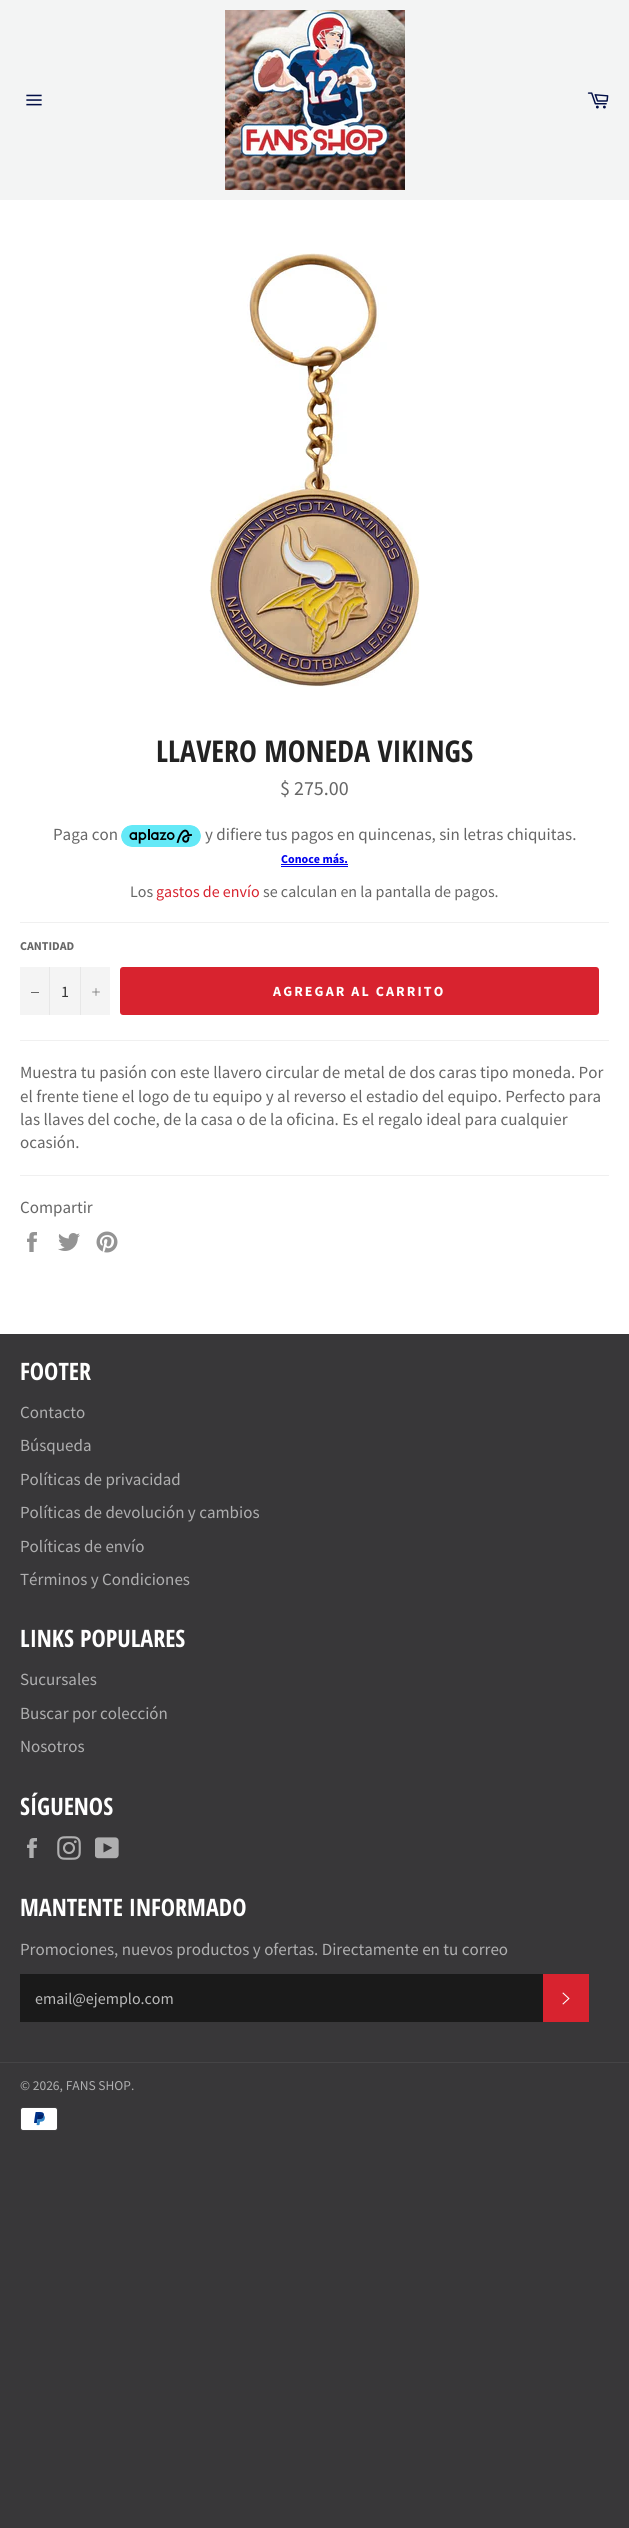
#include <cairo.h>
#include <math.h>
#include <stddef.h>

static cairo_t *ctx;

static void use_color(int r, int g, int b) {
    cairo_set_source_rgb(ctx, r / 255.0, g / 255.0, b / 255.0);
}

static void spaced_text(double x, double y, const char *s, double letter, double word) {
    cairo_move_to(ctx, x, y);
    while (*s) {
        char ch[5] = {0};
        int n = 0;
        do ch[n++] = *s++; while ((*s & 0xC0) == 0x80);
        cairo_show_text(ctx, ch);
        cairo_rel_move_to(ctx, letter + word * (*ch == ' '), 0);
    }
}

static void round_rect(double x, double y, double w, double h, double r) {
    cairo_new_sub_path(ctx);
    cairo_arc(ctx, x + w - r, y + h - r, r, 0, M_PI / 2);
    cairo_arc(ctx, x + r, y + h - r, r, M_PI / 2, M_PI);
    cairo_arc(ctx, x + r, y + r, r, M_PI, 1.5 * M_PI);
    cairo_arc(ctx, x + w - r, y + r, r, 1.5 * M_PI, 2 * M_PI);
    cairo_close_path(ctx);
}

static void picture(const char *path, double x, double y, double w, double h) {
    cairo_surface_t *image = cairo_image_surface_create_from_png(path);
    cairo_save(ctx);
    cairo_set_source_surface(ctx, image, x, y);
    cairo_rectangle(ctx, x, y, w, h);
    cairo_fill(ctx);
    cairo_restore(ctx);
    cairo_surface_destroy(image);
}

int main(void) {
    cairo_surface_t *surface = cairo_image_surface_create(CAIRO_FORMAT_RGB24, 629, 2528);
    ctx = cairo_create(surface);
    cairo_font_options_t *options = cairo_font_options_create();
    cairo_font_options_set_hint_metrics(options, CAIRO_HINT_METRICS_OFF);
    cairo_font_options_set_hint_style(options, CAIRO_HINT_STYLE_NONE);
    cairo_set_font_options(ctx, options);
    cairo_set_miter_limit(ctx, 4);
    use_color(56, 55, 57);
    cairo_paint(ctx);
    use_color(243, 244, 244);
    cairo_rectangle(ctx, 0, 0, 629, 200);
    cairo_fill(ctx);
    picture("img1.png", 26, 94, 16, 12);
    picture("img2.png", 225, 10, 180, 180);
    picture("img3.png", 587, 92, 22, 17);
    use_color(255, 255, 255);
    cairo_rectangle(ctx, 0, 200, 629, 1134);
    cairo_fill(ctx);
    picture("img4.png", 209, 253, 211, 434);
    cairo_select_font_face(ctx, "Open Sans Condensed", CAIRO_FONT_SLANT_NORMAL, CAIRO_FONT_WEIGHT_BOLD);
    cairo_set_font_size(ctx, 30);
    use_color(34, 34, 34);
    cairo_move_to(ctx, 156, 762);
    cairo_show_text(ctx, "LLAVERO MONEDA VIKINGS");
    cairo_select_font_face(ctx, "Source Sans Pro", CAIRO_FONT_SLANT_NORMAL, CAIRO_FONT_WEIGHT_NORMAL);
    cairo_set_font_size(ctx, 20);
    use_color(102, 102, 102);
    cairo_move_to(ctx, 280, 795);
    cairo_show_text(ctx, "$ 275.00");
    cairo_set_font_size(ctx, 17);
    cairo_move_to(ctx, 53, 840);
    cairo_show_text(ctx, "Paga con");
    picture("img5.png", 121, 825, 80, 22);
    cairo_move_to(ctx, 205, 840);
    cairo_show_text(ctx, "y difiere tus pagos en quincenas, sin letras chiquitas.");
    cairo_select_font_face(ctx, "Source Sans Pro", CAIRO_FONT_SLANT_NORMAL, CAIRO_FONT_WEIGHT_BOLD);
    cairo_set_font_size(ctx, 12);
    use_color(0, 0, 238);
    cairo_move_to(ctx, 281, 863);
    cairo_show_text(ctx, "Conoce más.");
    cairo_rectangle(ctx, 281, 866, 67, 1);
    cairo_fill(ctx);
    cairo_rectangle(ctx, 281, 864, 67, 1);
    cairo_fill(ctx);
    cairo_select_font_face(ctx, "Source Sans Pro", CAIRO_FONT_SLANT_NORMAL, CAIRO_FONT_WEIGHT_NORMAL);
    cairo_set_font_size(ctx, 16);
    use_color(102, 102, 102);
    cairo_move_to(ctx, 130, 897);
    cairo_show_text(ctx, "Los");
    use_color(216, 35, 47);
    cairo_move_to(ctx, 156, 897);
    cairo_show_text(ctx, "gastos de envío");
    use_color(102, 102, 102);
    cairo_move_to(ctx, 263, 897);
    cairo_show_text(ctx, "se calculan en la pantalla de pagos.");
    use_color(240, 240, 240);
    cairo_rectangle(ctx, 20, 922, 589, 1);
    cairo_fill(ctx);
    cairo_select_font_face(ctx, "Source Sans Pro", CAIRO_FONT_SLANT_NORMAL, CAIRO_FONT_WEIGHT_BOLD);
    cairo_set_font_size(ctx, 12);
    use_color(102, 102, 102);
    cairo_move_to(ctx, 20, 950);
    cairo_show_text(ctx, "CANTIDAD");
    use_color(244, 244, 244);
    cairo_rectangle(ctx, 20, 967, 90, 48);
    cairo_fill(ctx);
    use_color(231, 231, 231);
    cairo_rectangle(ctx, 49, 967, 1, 48);
    cairo_fill(ctx);
    use_color(102, 102, 102);
    cairo_rectangle(ctx, 31, 992, 8, 1);
    cairo_fill(ctx);
    cairo_select_font_face(ctx, "Source Sans Pro", CAIRO_FONT_SLANT_NORMAL, CAIRO_FONT_WEIGHT_NORMAL);
    cairo_set_font_size(ctx, 16);
    use_color(51, 51, 51);
    cairo_move_to(ctx, 61, 997);
    cairo_show_text(ctx, "1");
    use_color(231, 231, 231);
    cairo_rectangle(ctx, 80, 967, 1, 48);
    cairo_fill(ctx);
    picture("img6.png", 92, 988, 8, 8);
    use_color(216, 35, 47);
    round_rect(120, 967, 479, 48, 3);
    cairo_fill(ctx);
    cairo_select_font_face(ctx, "Source Sans Pro", CAIRO_FONT_SLANT_NORMAL, CAIRO_FONT_WEIGHT_BOLD);
    cairo_set_font_size(ctx, 14);
    use_color(255, 255, 255);
    spaced_text(273, 996, "AGREGAR AL CARRITO", 2.1, 0);
    use_color(240, 240, 240);
    cairo_rectangle(ctx, 20, 1040, 589, 1);
    cairo_fill(ctx);
    cairo_select_font_face(ctx, "Source Sans Pro", CAIRO_FONT_SLANT_NORMAL, CAIRO_FONT_WEIGHT_NORMAL);
    cairo_set_font_size(ctx, 17);
    use_color(102, 102, 102);
    cairo_move_to(ctx, 20, 1078);
    cairo_show_text(ctx, "Muestra tu pasión con este llavero circular de metal de dos caras tipo moneda. Por");
    cairo_move_to(ctx, 20, 1102);
    cairo_show_text(ctx, "el frente tiene el logo de tu equipo y al reverso el estadio del equipo. Perfecto para");
    cairo_move_to(ctx, 20, 1125);
    cairo_show_text(ctx, "las llaves del coche, de la casa o de la oficina. Es el regalo ideal para cualquier");
    cairo_move_to(ctx, 20, 1148);
    cairo_show_text(ctx, "ocasión.");
    use_color(240, 240, 240);
    cairo_rectangle(ctx, 20, 1175, 589, 1);
    cairo_fill(ctx);
    use_color(102, 102, 102);
    cairo_move_to(ctx, 20, 1213);
    cairo_show_text(ctx, "Compartir");
    picture("img7.png", 27, 1232, 10, 20);
    picture("img8.png", 58, 1233, 22, 18);
    picture("img9.png", 96, 1231, 22, 22);
    cairo_select_font_face(ctx, "Open Sans Condensed", CAIRO_FONT_SLANT_NORMAL, CAIRO_FONT_WEIGHT_BOLD);
    cairo_set_font_size(ctx, 24);
    use_color(255, 255, 255);
    cairo_move_to(ctx, 20, 1380);
    cairo_show_text(ctx, "FOOTER");
    cairo_select_font_face(ctx, "Source Sans Pro", CAIRO_FONT_SLANT_NORMAL, CAIRO_FONT_WEIGHT_NORMAL);
    cairo_set_font_size(ctx, 17);
    use_color(175, 175, 176);
    cairo_move_to(ctx, 20, 1418);
    cairo_show_text(ctx, "Contacto");
    cairo_move_to(ctx, 20, 1451);
    cairo_show_text(ctx, "Búsqueda");
    cairo_move_to(ctx, 20, 1485);
    cairo_show_text(ctx, "Políticas de privacidad");
    cairo_move_to(ctx, 20, 1518);
    cairo_show_text(ctx, "Políticas de devolución y cambios");
    cairo_move_to(ctx, 20, 1552);
    cairo_show_text(ctx, "Políticas de envío");
    cairo_move_to(ctx, 20, 1585);
    cairo_show_text(ctx, "Términos y Condiciones");
    cairo_select_font_face(ctx, "Open Sans Condensed", CAIRO_FONT_SLANT_NORMAL, CAIRO_FONT_WEIGHT_BOLD);
    cairo_set_font_size(ctx, 24);
    use_color(255, 255, 255);
    cairo_move_to(ctx, 20, 1647);
    cairo_show_text(ctx, "LINKS POPULARES");
    cairo_select_font_face(ctx, "Source Sans Pro", CAIRO_FONT_SLANT_NORMAL, CAIRO_FONT_WEIGHT_NORMAL);
    cairo_set_font_size(ctx, 17);
    use_color(175, 175, 176);
    cairo_move_to(ctx, 20, 1685);
    cairo_show_text(ctx, "Sucursales");
    cairo_move_to(ctx, 20, 1719);
    cairo_show_text(ctx, "Buscar por colección");
    cairo_move_to(ctx, 20, 1752);
    cairo_show_text(ctx, "Nosotros");
    cairo_select_font_face(ctx, "Open Sans Condensed", CAIRO_FONT_SLANT_NORMAL, CAIRO_FONT_WEIGHT_BOLD);
    cairo_set_font_size(ctx, 24);
    use_color(255, 255, 255);
    cairo_move_to(ctx, 20, 1815);
    cairo_show_text(ctx, "SÍGUENOS");
    picture("img10.png", 27, 1838, 10, 20);
    picture("img11.png", 57, 1836, 24, 24);
    picture("img12.png", 95, 1837, 24, 22);
    cairo_move_to(ctx, 20, 1916);
    cairo_show_text(ctx, "MANTENTE INFORMADO");
    cairo_select_font_face(ctx, "Source Sans Pro", CAIRO_FONT_SLANT_NORMAL, CAIRO_FONT_WEIGHT_NORMAL);
    cairo_set_font_size(ctx, 17);
    use_color(175, 175, 176);
    cairo_move_to(ctx, 20, 1955);
    cairo_show_text(ctx, "Promociones, nuevos productos y ofertas. Directamente en tu correo");
    use_color(26, 26, 26);
    cairo_rectangle(ctx, 20, 1974, 523, 48);
    cairo_fill(ctx);
    cairo_set_font_size(ctx, 16);
    use_color(186, 186, 186);
    cairo_move_to(ctx, 35, 2004);
    cairo_show_text(ctx, "email@ejemplo.com");
    use_color(216, 35, 47);
    cairo_rectangle(ctx, 543, 1974, 46, 48);
    cairo_fill(ctx);
    picture("img13.png", 562, 1992, 8, 13);
    use_color(69, 68, 70);
    cairo_rectangle(ctx, 0, 2062, 629, 1);
    cairo_fill(ctx);
    cairo_set_font_size(ctx, 13.5);
    use_color(175, 175, 176);
    cairo_move_to(ctx, 20, 2090);
    cairo_show_text(ctx, "© 2026, FANS SHOP.");
    picture("img14.png", 20, 2107, 38, 24);
    cairo_surface_write_to_png(surface, "result.png");
    cairo_font_options_destroy(options);
    cairo_destroy(ctx);
    cairo_surface_destroy(surface);
    return 0;
}
